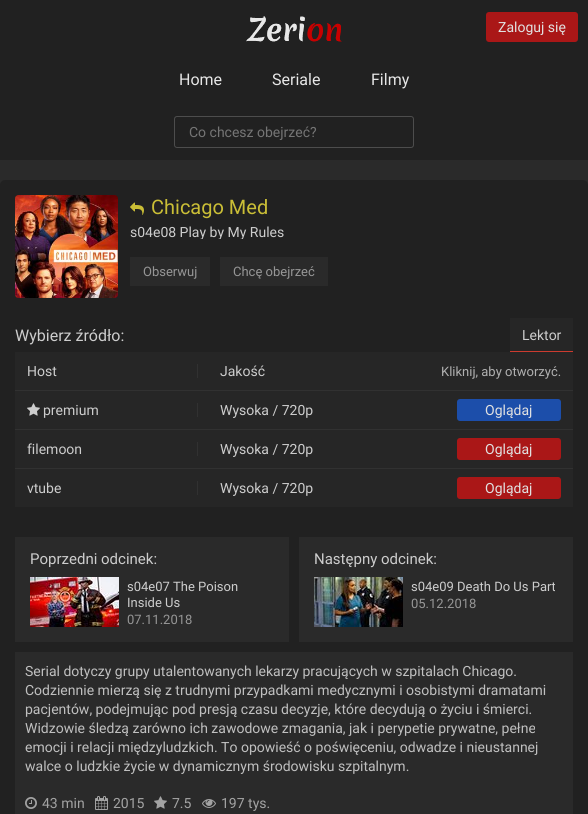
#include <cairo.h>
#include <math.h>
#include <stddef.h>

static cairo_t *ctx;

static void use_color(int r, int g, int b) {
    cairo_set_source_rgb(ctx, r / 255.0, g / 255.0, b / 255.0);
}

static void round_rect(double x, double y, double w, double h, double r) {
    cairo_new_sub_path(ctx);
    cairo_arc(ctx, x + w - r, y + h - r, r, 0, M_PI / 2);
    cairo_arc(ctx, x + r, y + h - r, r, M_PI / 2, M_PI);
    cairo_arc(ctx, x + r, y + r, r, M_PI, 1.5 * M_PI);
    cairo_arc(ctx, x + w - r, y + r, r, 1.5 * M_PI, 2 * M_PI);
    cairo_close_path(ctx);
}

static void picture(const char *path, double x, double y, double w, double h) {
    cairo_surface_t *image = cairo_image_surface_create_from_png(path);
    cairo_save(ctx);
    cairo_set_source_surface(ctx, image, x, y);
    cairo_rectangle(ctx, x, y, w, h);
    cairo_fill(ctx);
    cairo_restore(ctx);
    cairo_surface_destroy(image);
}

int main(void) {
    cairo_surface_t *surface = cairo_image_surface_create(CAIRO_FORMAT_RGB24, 588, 814);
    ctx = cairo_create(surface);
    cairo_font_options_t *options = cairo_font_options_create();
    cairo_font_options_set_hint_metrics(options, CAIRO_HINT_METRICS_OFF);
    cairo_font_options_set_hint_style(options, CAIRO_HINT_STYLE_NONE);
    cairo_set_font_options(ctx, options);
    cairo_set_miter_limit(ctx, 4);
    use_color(42, 42, 42);
    cairo_paint(ctx);
    use_color(33, 33, 33);
    cairo_rectangle(ctx, 0, 0, 588, 160);
    cairo_fill(ctx);
    picture("img1.png", 246, 16, 96, 26);
    use_color(170, 23, 23);
    round_rect(486, 12, 92, 30, 3);
    cairo_fill(ctx);
    cairo_select_font_face(ctx, "Roboto", CAIRO_FONT_SLANT_NORMAL, CAIRO_FONT_WEIGHT_NORMAL);
    cairo_set_font_size(ctx, 14);
    use_color(225, 225, 225);
    cairo_move_to(ctx, 498, 32);
    cairo_show_text(ctx, "Zaloguj się");
    cairo_set_font_size(ctx, 16);
    use_color(231, 231, 231);
    cairo_move_to(ctx, 179, 85);
    cairo_show_text(ctx, "Home");
    cairo_move_to(ctx, 272, 85);
    cairo_show_text(ctx, "Seriale");
    cairo_move_to(ctx, 371, 85);
    cairo_show_text(ctx, "Filmy");
    round_rect(174.5, 116.5, 239, 31, 2.5);
    use_color(77, 77, 77);
    cairo_set_line_width(ctx, 1);
    cairo_stroke(ctx);
    cairo_set_font_size(ctx, 14);
    use_color(117, 117, 117);
    cairo_move_to(ctx, 189, 137);
    cairo_show_text(ctx, "Co chcesz obejrzeć?");
    use_color(33, 33, 33);
    round_rect(0, 180, 588, 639, 5);
    cairo_fill(ctx);
    picture("img2.png", 15, 195, 103, 103);
    picture("img3.png", 130, 202, 14, 13);
    cairo_set_font_size(ctx, 20);
    use_color(202, 190, 54);
    cairo_move_to(ctx, 151, 214);
    cairo_show_text(ctx, "Chicago Med");
    cairo_save(ctx);
    cairo_rectangle(ctx, 130, 225, 443, 14);
    cairo_clip(ctx);
    cairo_set_font_size(ctx, 14);
    use_color(205, 205, 205);
    cairo_move_to(ctx, 130, 237);
    cairo_show_text(ctx, "s04e08 Play by My Rules");
    cairo_restore(ctx);
    use_color(42, 42, 42);
    cairo_rectangle(ctx, 130, 257, 80, 29);
    cairo_fill(ctx);
    cairo_set_font_size(ctx, 13);
    use_color(150, 150, 150);
    cairo_move_to(ctx, 143, 276);
    cairo_show_text(ctx, "Obserwuj");
    use_color(42, 42, 42);
    cairo_rectangle(ctx, 220, 257, 108, 29);
    cairo_fill(ctx);
    use_color(150, 150, 150);
    cairo_move_to(ctx, 233, 276);
    cairo_show_text(ctx, "Chcę obejrzeć");
    cairo_set_font_size(ctx, 16);
    use_color(205, 205, 205);
    cairo_move_to(ctx, 15, 341);
    cairo_show_text(ctx, "Wybierz źródło:");
    use_color(38, 38, 38);
    cairo_rectangle(ctx, 510, 318, 63, 33);
    cairo_fill(ctx);
    use_color(204, 59, 47);
    cairo_rectangle(ctx, 510, 351, 63, 1);
    cairo_fill(ctx);
    cairo_set_font_size(ctx, 14);
    use_color(205, 205, 205);
    cairo_move_to(ctx, 522, 340);
    cairo_show_text(ctx, "Lektor");
    use_color(38, 38, 38);
    cairo_rectangle(ctx, 15, 352, 558, 155);
    cairo_fill(ctx);
    use_color(49, 49, 49);
    cairo_rectangle(ctx, 15, 390, 558, 1);
    cairo_fill(ctx);
    cairo_rectangle(ctx, 197, 364, 1, 14);
    cairo_fill(ctx);
    use_color(205, 205, 205);
    cairo_move_to(ctx, 27, 376);
    cairo_show_text(ctx, "Host");
    cairo_move_to(ctx, 220, 376);
    cairo_show_text(ctx, "Jakość");
    cairo_set_font_size(ctx, 13);
    use_color(176, 176, 176);
    cairo_move_to(ctx, 441, 376);
    cairo_show_text(ctx, "Kliknij, aby otworzyć.");
    use_color(49, 49, 49);
    cairo_rectangle(ctx, 15, 429, 558, 1);
    cairo_fill(ctx);
    cairo_rectangle(ctx, 197, 403, 1, 14);
    cairo_fill(ctx);
    picture("img4.png", 27, 403, 13, 13);
    cairo_set_font_size(ctx, 14);
    use_color(205, 205, 205);
    cairo_move_to(ctx, 43, 415);
    cairo_show_text(ctx, "premium");
    cairo_move_to(ctx, 220, 415);
    cairo_show_text(ctx, "Wysoka / 720p");
    use_color(28, 78, 170);
    round_rect(457, 399, 104, 22, 3);
    cairo_fill(ctx);
    use_color(225, 225, 225);
    cairo_move_to(ctx, 485, 415);
    cairo_show_text(ctx, "Oglądaj");
    use_color(49, 49, 49);
    cairo_rectangle(ctx, 15, 468, 558, 1);
    cairo_fill(ctx);
    cairo_rectangle(ctx, 197, 442, 1, 14);
    cairo_fill(ctx);
    use_color(205, 205, 205);
    cairo_move_to(ctx, 27, 454);
    cairo_show_text(ctx, "filemoon");
    cairo_move_to(ctx, 220, 454);
    cairo_show_text(ctx, "Wysoka / 720p");
    use_color(170, 23, 23);
    round_rect(457, 438, 104, 22, 3);
    cairo_fill(ctx);
    use_color(225, 225, 225);
    cairo_move_to(ctx, 485, 454);
    cairo_show_text(ctx, "Oglądaj");
    use_color(49, 49, 49);
    cairo_rectangle(ctx, 197, 481, 1, 14);
    cairo_fill(ctx);
    use_color(205, 205, 205);
    cairo_move_to(ctx, 27, 493);
    cairo_show_text(ctx, "vtube");
    cairo_move_to(ctx, 220, 493);
    cairo_show_text(ctx, "Wysoka / 720p");
    use_color(170, 23, 23);
    round_rect(457, 477, 104, 22, 3);
    cairo_fill(ctx);
    use_color(225, 225, 225);
    cairo_move_to(ctx, 485, 493);
    cairo_show_text(ctx, "Oglądaj");
    use_color(42, 42, 42);
    cairo_rectangle(ctx, 15, 537, 274, 105);
    cairo_fill(ctx);
    cairo_set_font_size(ctx, 15);
    use_color(205, 205, 205);
    cairo_move_to(ctx, 30, 564);
    cairo_show_text(ctx, "Poprzedni odcinek:");
    picture("img5.png", 30, 577, 89, 50);
    cairo_set_font_size(ctx, 13);
    cairo_move_to(ctx, 127, 591);
    cairo_show_text(ctx, "s04e07 The Poison");
    cairo_move_to(ctx, 127, 607);
    cairo_show_text(ctx, "Inside Us");
    use_color(150, 150, 150);
    cairo_move_to(ctx, 127, 624);
    cairo_show_text(ctx, "07.11.2018");
    use_color(42, 42, 42);
    cairo_rectangle(ctx, 299, 537, 274, 105);
    cairo_fill(ctx);
    cairo_set_font_size(ctx, 15);
    use_color(205, 205, 205);
    cairo_move_to(ctx, 314, 564);
    cairo_show_text(ctx, "Następny odcinek:");
    picture("img6.png", 314, 577, 89, 50);
    cairo_set_font_size(ctx, 13);
    cairo_move_to(ctx, 411, 591);
    cairo_show_text(ctx, "s04e09 Death Do Us Part");
    use_color(150, 150, 150);
    cairo_move_to(ctx, 411, 608);
    cairo_show_text(ctx, "05.12.2018");
    use_color(42, 42, 42);
    cairo_rectangle(ctx, 15, 652, 558, 162);
    cairo_fill(ctx);
    cairo_set_font_size(ctx, 14);
    use_color(192, 192, 192);
    cairo_move_to(ctx, 25, 676);
    cairo_show_text(ctx, "Serial dotyczy grupy utalentowanych lekarzy pracujących w szpitalach Chicago.");
    cairo_move_to(ctx, 25, 695);
    cairo_show_text(ctx, "Codziennie mierzą się z trudnymi przypadkami medycznymi i osobistymi dramatami");
    cairo_move_to(ctx, 25, 714);
    cairo_show_text(ctx, "pacjentów, podejmując pod presją czasu decyzje, które decydują o życiu i śmierci.");
    cairo_move_to(ctx, 25, 733);
    cairo_show_text(ctx, "Widzowie śledzą zarówno ich zawodowe zmagania, jak i perypetie prywatne, pełne");
    cairo_move_to(ctx, 25, 752);
    cairo_show_text(ctx, "emocji i relacji międzyludzkich. To opowieść o poświęceniu, odwadze i nieustannej");
    cairo_move_to(ctx, 25, 771);
    cairo_show_text(ctx, "walce o ludzkie życie w dynamicznym środowisku szpitalnym.");
    picture("img7.png", 25, 797, 12, 12);
    use_color(163, 163, 163);
    cairo_move_to(ctx, 42, 808);
    cairo_show_text(ctx, "43 min");
    picture("img8.png", 95, 796, 13, 14);
    cairo_move_to(ctx, 113, 808);
    cairo_show_text(ctx, "2015");
    picture("img9.png", 154, 796, 13, 13);
    cairo_move_to(ctx, 172, 808);
    cairo_show_text(ctx, "7.5");
    picture("img10.png", 202, 799, 14, 9);
    cairo_move_to(ctx, 221, 808);
    cairo_show_text(ctx, "197 tys.");
    cairo_surface_write_to_png(surface, "result.png");
    cairo_font_options_destroy(options);
    cairo_destroy(ctx);
    cairo_surface_destroy(surface);
    return 0;
}
